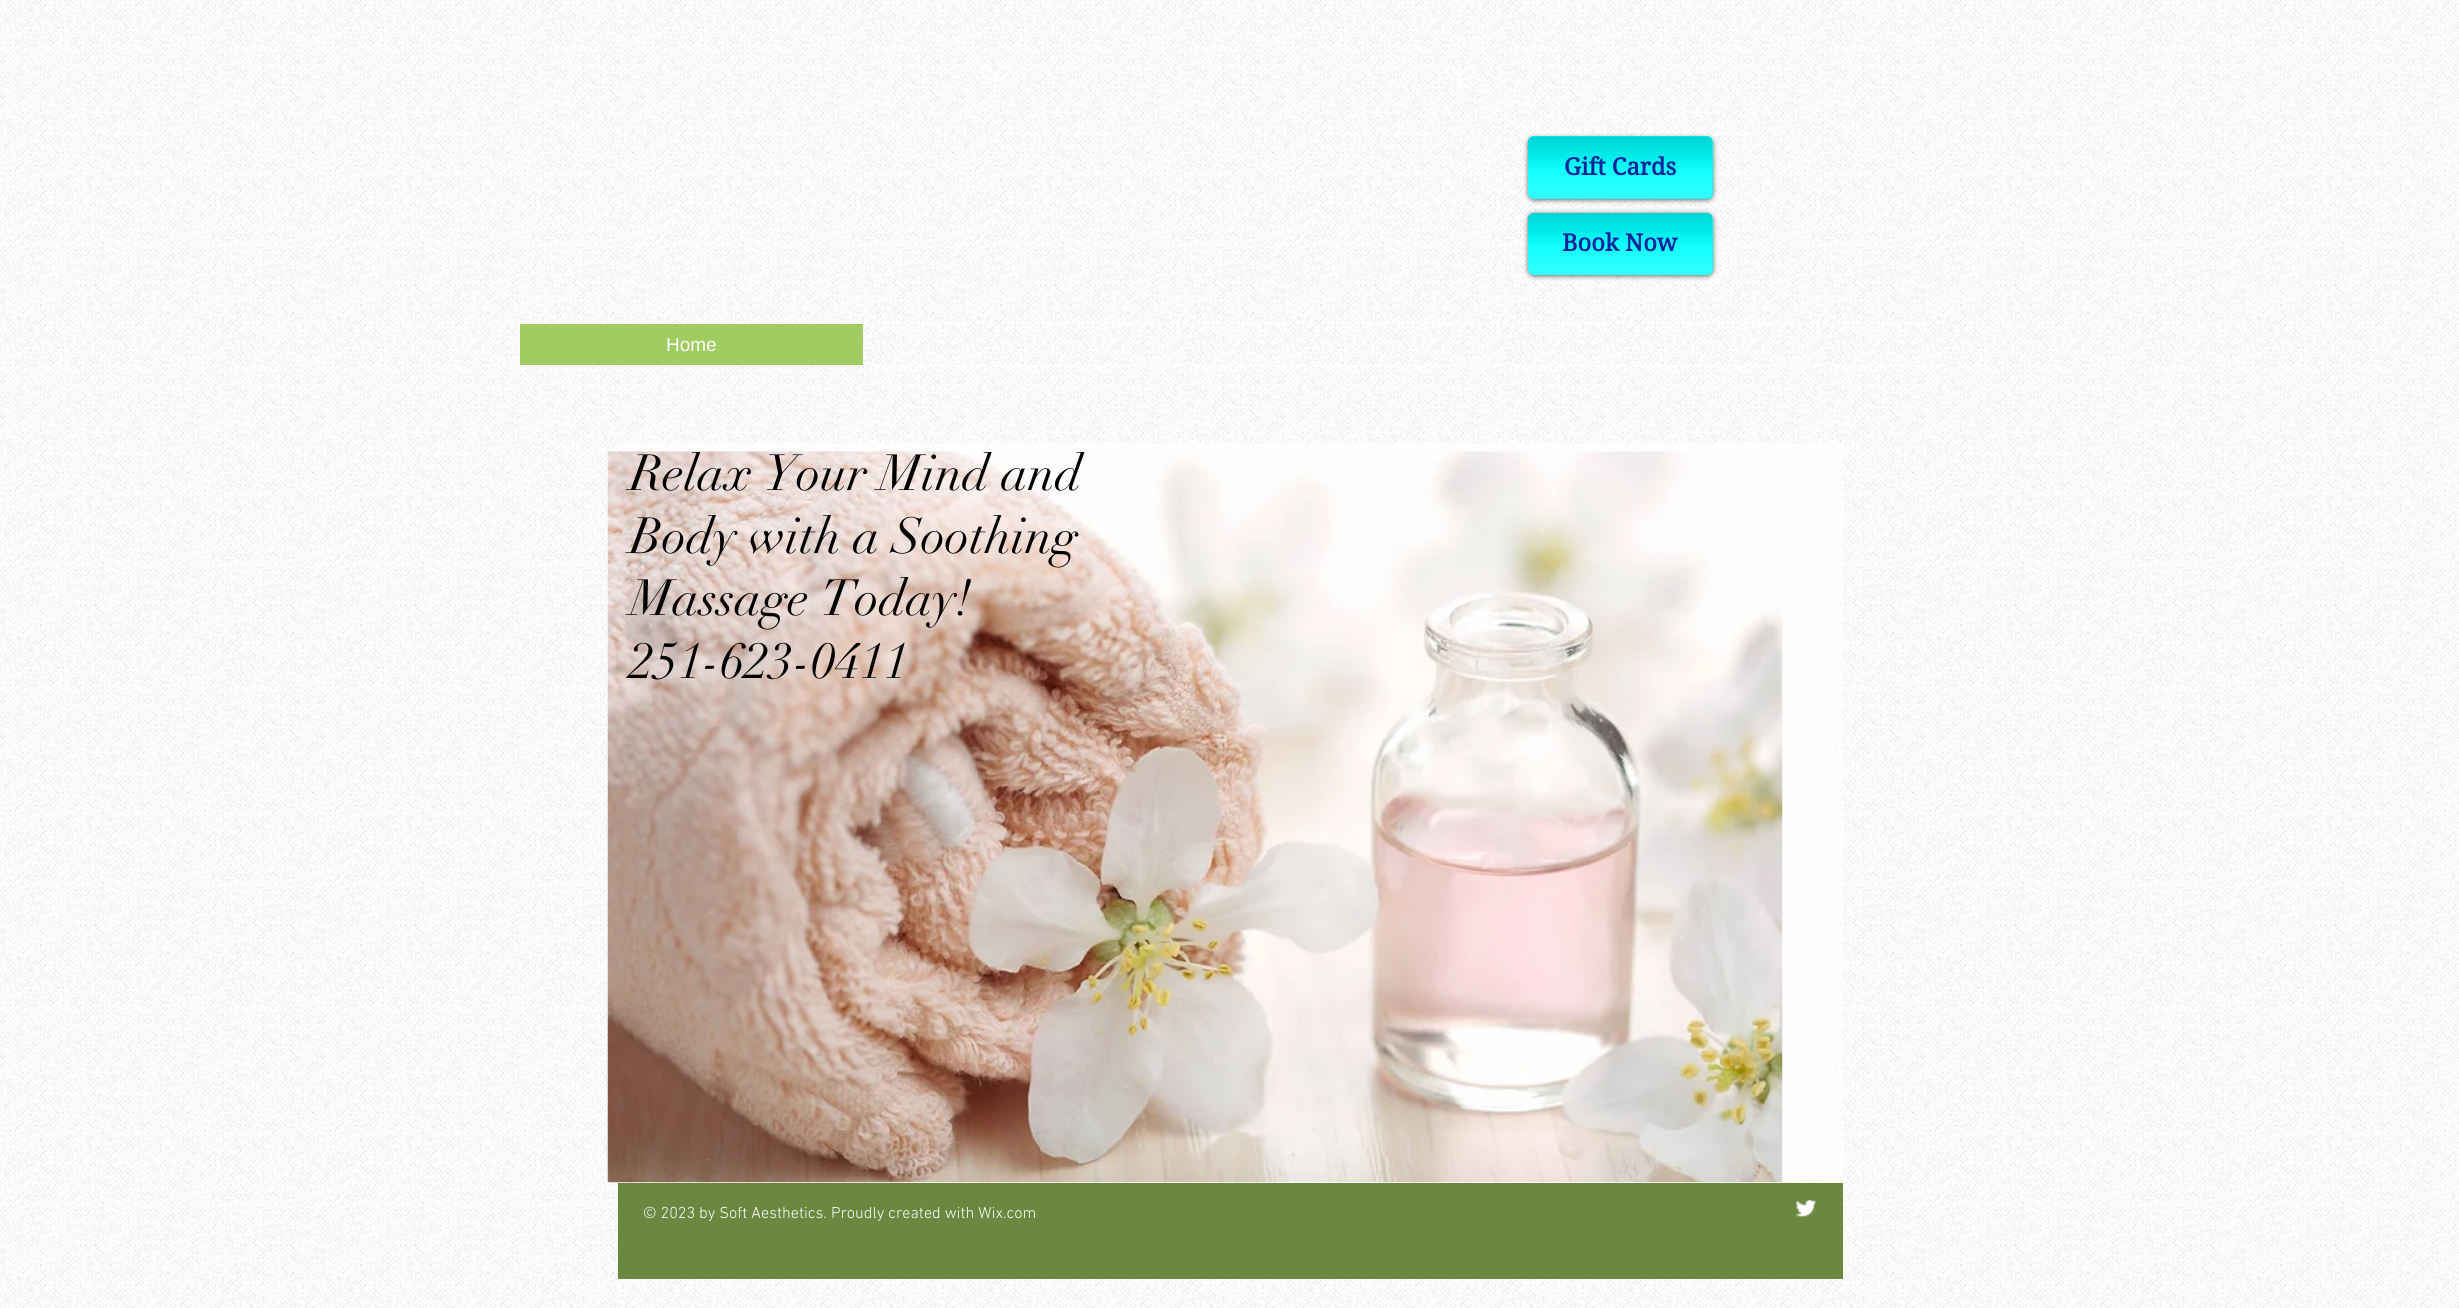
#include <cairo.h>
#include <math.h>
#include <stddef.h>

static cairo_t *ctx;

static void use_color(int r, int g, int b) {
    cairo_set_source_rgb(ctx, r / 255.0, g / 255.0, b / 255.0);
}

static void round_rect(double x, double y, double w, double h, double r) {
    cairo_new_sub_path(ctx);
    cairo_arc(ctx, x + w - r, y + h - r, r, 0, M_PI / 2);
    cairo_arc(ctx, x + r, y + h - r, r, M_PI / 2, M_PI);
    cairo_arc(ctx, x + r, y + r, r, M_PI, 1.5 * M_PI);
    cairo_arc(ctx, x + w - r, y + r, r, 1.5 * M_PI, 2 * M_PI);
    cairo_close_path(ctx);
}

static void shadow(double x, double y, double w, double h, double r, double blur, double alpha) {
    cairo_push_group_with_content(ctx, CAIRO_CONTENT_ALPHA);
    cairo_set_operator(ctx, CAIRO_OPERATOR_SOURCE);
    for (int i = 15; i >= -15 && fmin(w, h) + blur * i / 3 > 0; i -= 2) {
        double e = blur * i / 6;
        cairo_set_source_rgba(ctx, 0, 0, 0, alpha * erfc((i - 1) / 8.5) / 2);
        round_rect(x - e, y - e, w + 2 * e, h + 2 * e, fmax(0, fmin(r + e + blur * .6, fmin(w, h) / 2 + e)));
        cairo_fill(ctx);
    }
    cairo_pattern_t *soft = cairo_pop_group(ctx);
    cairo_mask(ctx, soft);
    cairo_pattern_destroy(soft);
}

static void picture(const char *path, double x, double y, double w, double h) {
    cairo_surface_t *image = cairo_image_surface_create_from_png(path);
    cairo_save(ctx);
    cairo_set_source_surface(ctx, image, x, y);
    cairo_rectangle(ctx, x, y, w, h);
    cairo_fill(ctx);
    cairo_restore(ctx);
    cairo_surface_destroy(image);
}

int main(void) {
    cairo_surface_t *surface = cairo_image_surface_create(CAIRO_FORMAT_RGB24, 2459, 1308);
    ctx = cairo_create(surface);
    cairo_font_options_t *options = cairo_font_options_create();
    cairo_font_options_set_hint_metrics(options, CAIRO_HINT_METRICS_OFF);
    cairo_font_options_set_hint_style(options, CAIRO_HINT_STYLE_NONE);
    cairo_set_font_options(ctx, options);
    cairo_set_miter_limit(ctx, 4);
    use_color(255, 255, 255);
    cairo_paint(ctx);
    picture("img1.png", 0, 0, 2459, 1308);
    picture("img2.png", 979, 65, 32, 24);
    picture("img3.png", 1444, 65, 32, 25);
    use_color(0, 0, 0);
    shadow(1528, 138, 185, 62, 6, 2.5, 0.6);
    use_color(0, 255, 255);
    round_rect(1528, 136, 185, 63, 6);
    cairo_fill(ctx);
    picture("img4.png", 1527, 136, 186, 32);
    picture("img5.png", 1528, 158, 185, 41);
    cairo_select_font_face(ctx, "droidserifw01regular", CAIRO_FONT_SLANT_NORMAL, CAIRO_FONT_WEIGHT_BOLD);
    cairo_set_font_size(ctx, 23.75);
    use_color(14, 37, 153);
    cairo_move_to(ctx, 1564, 175);
    cairo_show_text(ctx, "Gift Cards");
    use_color(0, 0, 0);
    shadow(1528, 214, 185, 62, 6, 2.5, 0.6);
    use_color(0, 255, 255);
    round_rect(1528, 213, 185, 62, 6);
    cairo_fill(ctx);
    picture("img6.png", 1527, 212, 186, 32);
    picture("img7.png", 1528, 234, 185, 41);
    use_color(14, 37, 153);
    cairo_move_to(ctx, 1562, 251);
    cairo_show_text(ctx, "Book Now");
    use_color(255, 255, 255);
    cairo_rectangle(ctx, 520, 323, 1424, 1);
    cairo_fill(ctx);
    cairo_rectangle(ctx, 520, 365, 1424, 1);
    cairo_fill(ctx);
    use_color(160, 204, 98);
    cairo_rectangle(ctx, 520, 324, 343, 41);
    cairo_fill(ctx);
    cairo_select_font_face(ctx, "Liberation Sans", CAIRO_FONT_SLANT_NORMAL, CAIRO_FONT_WEIGHT_NORMAL);
    cairo_set_font_size(ctx, 19);
    use_color(255, 255, 255);
    cairo_move_to(ctx, 666, 351);
    cairo_show_text(ctx, "Home");
    cairo_set_source_rgba(ctx, 1, 1, 1, 0.7);
    cairo_rectangle(ctx, 618, 443, 1225, 740);
    cairo_fill(ctx);
    picture("img8.png", 607, 451, 1176, 732);
    cairo_select_font_face(ctx, "didot", CAIRO_FONT_SLANT_NORMAL, CAIRO_FONT_WEIGHT_NORMAL);
    cairo_set_font_size(ctx, 50);
    use_color(0, 0, 0);
    cairo_move_to(ctx, 630, 490);
    cairo_show_text(ctx, "Relax Your Mind and");
    cairo_move_to(ctx, 630, 553);
    cairo_show_text(ctx, "Body with a Soothing");
    cairo_move_to(ctx, 630, 615);
    cairo_show_text(ctx, "Massage Today!");
    cairo_move_to(ctx, 630, 678);
    cairo_show_text(ctx, "251-623-0411");
    use_color(107, 136, 65);
    cairo_rectangle(ctx, 618, 1183, 1225, 96);
    cairo_fill(ctx);
    cairo_select_font_face(ctx, "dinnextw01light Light", CAIRO_FONT_SLANT_NORMAL, CAIRO_FONT_WEIGHT_NORMAL);
    cairo_set_font_size(ctx, 16.25);
    use_color(255, 255, 255);
    cairo_move_to(ctx, 643, 1218);
    cairo_show_text(ctx, "© 2023 by Soft Aesthetics. Proudly created with Wix.com");
    picture("img9.png", 1795, 1199, 22, 19);
    cairo_surface_write_to_png(surface, "result.png");
    cairo_font_options_destroy(options);
    cairo_destroy(ctx);
    cairo_surface_destroy(surface);
    return 0;
}
